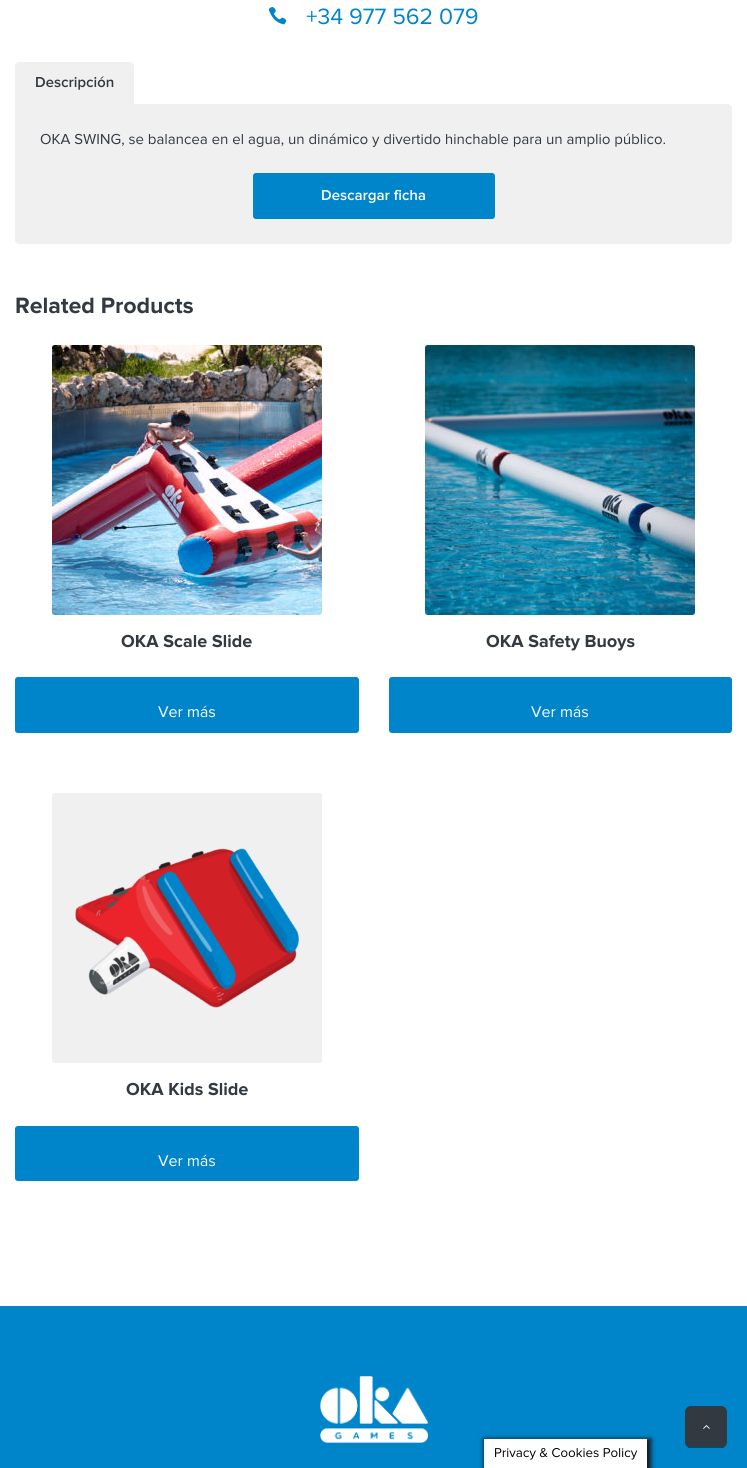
#include <cairo.h>
#include <math.h>
#include <stddef.h>

static cairo_t *ctx;

static void use_color(int r, int g, int b) {
    cairo_set_source_rgb(ctx, r / 255.0, g / 255.0, b / 255.0);
}

static void round_rect(double x, double y, double w, double h, double r) {
    cairo_new_sub_path(ctx);
    cairo_arc(ctx, x + w - r, y + h - r, r, 0, M_PI / 2);
    cairo_arc(ctx, x + r, y + h - r, r, M_PI / 2, M_PI);
    cairo_arc(ctx, x + r, y + r, r, M_PI, 1.5 * M_PI);
    cairo_arc(ctx, x + w - r, y + r, r, 1.5 * M_PI, 2 * M_PI);
    cairo_close_path(ctx);
}

static void shadow(double x, double y, double w, double h, double r, double blur, double alpha) {
    cairo_push_group_with_content(ctx, CAIRO_CONTENT_ALPHA);
    cairo_set_operator(ctx, CAIRO_OPERATOR_SOURCE);
    for (int i = 15; i >= -15 && fmin(w, h) + blur * i / 3 > 0; i -= 2) {
        double e = blur * i / 6;
        cairo_set_source_rgba(ctx, 0, 0, 0, alpha * erfc((i - 1) / 8.5) / 2);
        round_rect(x - e, y - e, w + 2 * e, h + 2 * e, fmax(0, fmin(r + e + blur * .6, fmin(w, h) / 2 + e)));
        cairo_fill(ctx);
    }
    cairo_pattern_t *soft = cairo_pop_group(ctx);
    cairo_mask(ctx, soft);
    cairo_pattern_destroy(soft);
}

static void picture(const char *path, double x, double y, double w, double h) {
    cairo_surface_t *image = cairo_image_surface_create_from_png(path);
    cairo_save(ctx);
    cairo_set_source_surface(ctx, image, x, y);
    cairo_rectangle(ctx, x, y, w, h);
    cairo_fill(ctx);
    cairo_restore(ctx);
    cairo_surface_destroy(image);
}

int main(void) {
    cairo_surface_t *surface = cairo_image_surface_create(CAIRO_FORMAT_RGB24, 747, 1468);
    ctx = cairo_create(surface);
    cairo_font_options_t *options = cairo_font_options_create();
    cairo_font_options_set_hint_metrics(options, CAIRO_HINT_METRICS_OFF);
    cairo_font_options_set_hint_style(options, CAIRO_HINT_STYLE_NONE);
    cairo_set_font_options(ctx, options);
    cairo_set_miter_limit(ctx, 4);
    use_color(255, 255, 255);
    cairo_paint(ctx);
    picture("img1.png", 268, 7, 19, 18);
    picture("img2.png", 306, 8, 172, 17);
    use_color(240, 240, 240);
    cairo_new_path(ctx);
    cairo_move_to(ctx, 19, 62);
    cairo_line_to(ctx, 130, 62);
    cairo_curve_to(ctx, 132, 62, 134, 64, 134, 66);
    cairo_line_to(ctx, 134, 104);
    cairo_line_to(ctx, 15, 104);
    cairo_line_to(ctx, 15, 66);
    cairo_curve_to(ctx, 15, 64, 17, 62, 19, 62);
    cairo_close_path(ctx);
    cairo_fill(ctx);
    picture("img3.png", 36, 76, 78, 14);
    cairo_new_path(ctx);
    cairo_move_to(ctx, 15, 104);
    cairo_line_to(ctx, 728, 104);
    cairo_curve_to(ctx, 730, 104, 732, 106, 732, 108);
    cairo_line_to(ctx, 732, 240);
    cairo_curve_to(ctx, 732, 242, 730, 244, 728, 244);
    cairo_line_to(ctx, 19, 244);
    cairo_curve_to(ctx, 17, 244, 15, 242, 15, 240);
    cairo_close_path(ctx);
    cairo_fill(ctx);
    picture("img4.png", 40, 133, 626, 14);
    use_color(0, 133, 202);
    round_rect(253.5, 173.5, 241, 45, 2.5);
    cairo_fill_preserve(ctx);
    cairo_set_line_width(ctx, 1);
    cairo_stroke(ctx);
    picture("img5.png", 322, 189, 103, 14);
    picture("img6.png", 16, 297, 177, 17);
    picture("img7.png", 52, 345, 270, 270);
    picture("img8.png", 121, 634, 131, 14);
    round_rect(15.5, 677.5, 343, 55, 2.5);
    cairo_fill_preserve(ctx);
    cairo_stroke(ctx);
    picture("img9.png", 158, 705, 57, 13);
    picture("img10.png", 425, 345, 270, 270);
    picture("img11.png", 486, 634, 149, 17);
    round_rect(389.5, 677.5, 342, 55, 2.5);
    cairo_fill_preserve(ctx);
    cairo_stroke(ctx);
    picture("img9.png", 531, 705, 57, 13);
    picture("img12.png", 52, 793, 270, 270);
    picture("img13.png", 126, 1082, 122, 14);
    round_rect(15.5, 1126.5, 343, 54, 2.5);
    cairo_fill_preserve(ctx);
    cairo_stroke(ctx);
    picture("img9.png", 158, 1154, 57, 13);
    cairo_rectangle(ctx, 0, 1306, 747, 162);
    cairo_fill(ctx);
    picture("img14.png", 320, 1376, 108, 67);
    use_color(22, 22, 22);
    shadow(484, 1439, 167, 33, 0, 2.5, 1);
    use_color(255, 255, 255);
    cairo_rectangle(ctx, 484, 1439, 163, 29);
    cairo_fill(ctx);
    picture("img15.png", 495, 1448, 143, 12);
    use_color(50, 57, 65);
    round_rect(685, 1406, 42, 42, 6);
    cairo_fill(ctx);
    use_color(0, 80, 121);
    cairo_rectangle(ctx, 688, 1447, 36, 1);
    cairo_fill(ctx);
    picture("img16.png", 703, 1425, 7, 4);
    cairo_surface_write_to_png(surface, "result.png");
    cairo_font_options_destroy(options);
    cairo_destroy(ctx);
    cairo_surface_destroy(surface);
    return 0;
}
